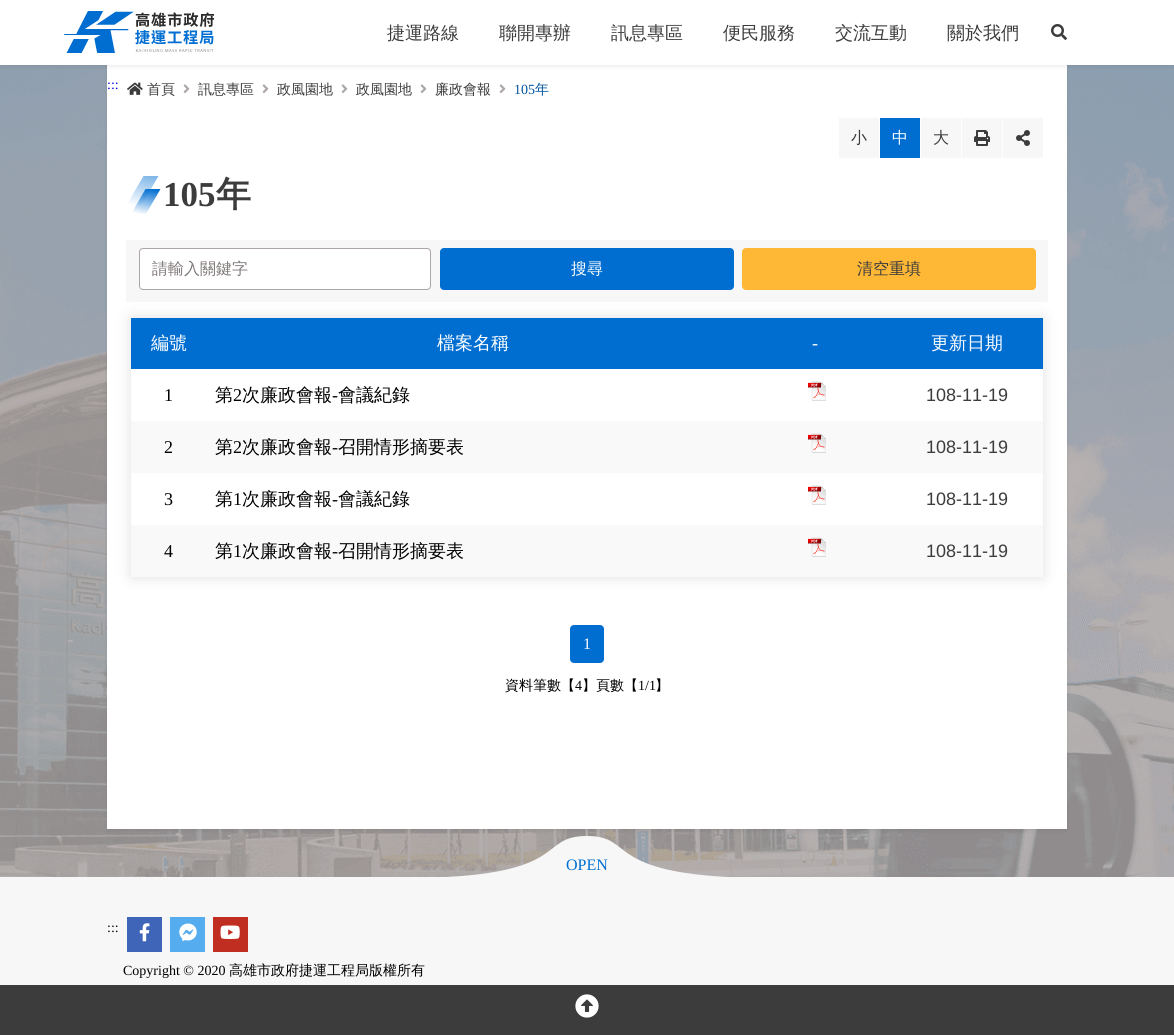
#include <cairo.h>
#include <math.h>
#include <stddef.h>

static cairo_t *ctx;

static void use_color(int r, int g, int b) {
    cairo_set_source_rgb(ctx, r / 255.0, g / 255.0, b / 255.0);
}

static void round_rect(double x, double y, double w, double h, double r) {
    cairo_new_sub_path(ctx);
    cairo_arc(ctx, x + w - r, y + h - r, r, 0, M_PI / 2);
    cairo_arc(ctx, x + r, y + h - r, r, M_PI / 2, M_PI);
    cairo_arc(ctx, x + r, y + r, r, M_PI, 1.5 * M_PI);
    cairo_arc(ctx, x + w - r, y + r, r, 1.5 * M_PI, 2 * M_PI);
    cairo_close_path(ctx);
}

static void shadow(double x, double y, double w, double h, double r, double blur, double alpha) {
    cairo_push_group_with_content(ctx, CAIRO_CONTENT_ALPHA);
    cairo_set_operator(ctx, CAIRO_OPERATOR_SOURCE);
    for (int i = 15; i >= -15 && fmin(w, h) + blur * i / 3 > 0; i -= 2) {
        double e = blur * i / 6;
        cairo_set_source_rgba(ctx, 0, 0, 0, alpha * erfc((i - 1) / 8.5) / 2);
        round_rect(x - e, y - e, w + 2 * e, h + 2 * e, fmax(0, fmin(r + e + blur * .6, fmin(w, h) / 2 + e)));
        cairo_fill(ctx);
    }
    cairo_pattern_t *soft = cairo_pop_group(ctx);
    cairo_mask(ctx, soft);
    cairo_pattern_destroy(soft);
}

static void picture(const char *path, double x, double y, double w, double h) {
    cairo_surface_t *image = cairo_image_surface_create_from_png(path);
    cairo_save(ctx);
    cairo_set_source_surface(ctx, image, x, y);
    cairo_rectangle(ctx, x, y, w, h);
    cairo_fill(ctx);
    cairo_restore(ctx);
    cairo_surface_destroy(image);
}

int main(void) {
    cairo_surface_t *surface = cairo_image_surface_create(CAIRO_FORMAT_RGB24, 1174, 1035);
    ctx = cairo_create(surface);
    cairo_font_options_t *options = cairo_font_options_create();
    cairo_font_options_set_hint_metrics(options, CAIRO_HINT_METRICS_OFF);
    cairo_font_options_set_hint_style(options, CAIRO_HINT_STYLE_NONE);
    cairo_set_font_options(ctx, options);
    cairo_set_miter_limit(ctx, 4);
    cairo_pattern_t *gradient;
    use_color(173, 166, 166);
    cairo_paint(ctx);
    picture("img3.png", 0, 65, 1174, 812);
    use_color(247, 247, 247);
    cairo_rectangle(ctx, 0, 877, 1174, 108);
    cairo_fill(ctx);
    cairo_save(ctx);
    cairo_rectangle(ctx, 437, 836, 300, 42);
    cairo_clip(ctx);
    cairo_set_fill_rule(ctx, CAIRO_FILL_RULE_EVEN_ODD);
    cairo_new_path(ctx);
    cairo_move_to(ctx, 587, 836);
    cairo_curve_to(ctx, 638, 836, 599, 878, 770, 878);
    cairo_line_to(ctx, 404, 878);
    cairo_curve_to(ctx, 575, 878, 535, 836, 587, 836);
    cairo_close_path(ctx);
    cairo_fill(ctx);
    cairo_restore(ctx);
    use_color(0, 0, 0);
    shadow(107, 56, 960, 775, 0, 2, 0.07);
    use_color(255, 255, 255);
    cairo_rectangle(ctx, 107, 65, 960, 764);
    cairo_fill(ctx);
    use_color(0, 0, 0);
    shadow(0, 2, 1174, 65, 0, 2, 0.07);
    use_color(255, 255, 255);
    cairo_rectangle(ctx, 0, 0, 1174, 65);
    cairo_fill(ctx);
    picture("img1.png", 64, 11, 151, 42);
    cairo_select_font_face(ctx, "WenQuanYi Zen Hei Medium", CAIRO_FONT_SLANT_NORMAL, CAIRO_FONT_WEIGHT_NORMAL);
    cairo_set_font_size(ctx, 18);
    use_color(60, 60, 60);
    cairo_move_to(ctx, 387, 39);
    cairo_show_text(ctx, "捷運路線");
    cairo_move_to(ctx, 499, 39);
    cairo_show_text(ctx, "聯開專辦");
    cairo_move_to(ctx, 611, 39);
    cairo_show_text(ctx, "訊息專區");
    cairo_move_to(ctx, 723, 39);
    cairo_show_text(ctx, "便民服務");
    cairo_move_to(ctx, 835, 39);
    cairo_show_text(ctx, "交流互動");
    cairo_move_to(ctx, 947, 39);
    cairo_show_text(ctx, "關於我們");
    picture("img2.png", 1051, 24, 16, 16);
    cairo_select_font_face(ctx, "Liberation Serif", CAIRO_FONT_SLANT_NORMAL, CAIRO_FONT_WEIGHT_NORMAL);
    cairo_set_font_size(ctx, 14);
    use_color(0, 0, 238);
    cairo_move_to(ctx, 107, 89);
    cairo_show_text(ctx, ":::");
    picture("img4.png", 127, 82, 16, 13);
    cairo_select_font_face(ctx, "WenQuanYi Zen Hei Medium", CAIRO_FONT_SLANT_NORMAL, CAIRO_FONT_WEIGHT_NORMAL);
    use_color(60, 60, 60);
    cairo_move_to(ctx, 147, 94);
    cairo_show_text(ctx, "首頁");
    picture("img5.png", 183, 84, 7, 9);
    cairo_move_to(ctx, 198, 94);
    cairo_show_text(ctx, "訊息專區");
    picture("img5.png", 262, 84, 7, 9);
    cairo_move_to(ctx, 277, 94);
    cairo_show_text(ctx, "政風園地");
    picture("img5.png", 341, 84, 7, 9);
    cairo_move_to(ctx, 356, 94);
    cairo_show_text(ctx, "政風園地");
    picture("img5.png", 420, 84, 7, 9);
    cairo_move_to(ctx, 435, 94);
    cairo_show_text(ctx, "廉政會報");
    picture("img5.png", 499, 84, 7, 9);
    cairo_select_font_face(ctx, "Liberation Serif", CAIRO_FONT_SLANT_NORMAL, CAIRO_FONT_WEIGHT_NORMAL);
    use_color(0, 83, 158);
    cairo_move_to(ctx, 514, 94);
    cairo_show_text(ctx, "105");
    cairo_select_font_face(ctx, "WenQuanYi Zen Hei Medium", CAIRO_FONT_SLANT_NORMAL, CAIRO_FONT_WEIGHT_NORMAL);
    cairo_move_to(ctx, 535, 94);
    cairo_show_text(ctx, "年");
    use_color(247, 247, 247);
    cairo_rectangle(ctx, 839, 118, 40, 40);
    cairo_fill(ctx);
    cairo_set_font_size(ctx, 16);
    use_color(60, 60, 60);
    cairo_move_to(ctx, 851, 143);
    cairo_show_text(ctx, "小");
    use_color(0, 110, 209);
    cairo_rectangle(ctx, 880, 118, 40, 40);
    cairo_fill(ctx);
    use_color(255, 255, 255);
    cairo_move_to(ctx, 892, 143);
    cairo_show_text(ctx, "中");
    use_color(247, 247, 247);
    cairo_rectangle(ctx, 921, 118, 40, 40);
    cairo_fill(ctx);
    use_color(60, 60, 60);
    cairo_move_to(ctx, 933, 143);
    cairo_show_text(ctx, "大");
    use_color(247, 247, 247);
    cairo_rectangle(ctx, 962, 118, 40, 40);
    cairo_fill(ctx);
    picture("img6.png", 974, 130, 16, 16);
    cairo_rectangle(ctx, 1003, 118, 40, 40);
    cairo_fill(ctx);
    picture("img7.png", 1016, 130, 14, 16);
    gradient = cairo_pattern_create_linear(146, 175, 139, 207);
    cairo_pattern_add_color_stop_rgba(gradient, 0, 0.502, 0.718, 0.91, 1);
    cairo_pattern_add_color_stop_rgba(gradient, 1, 1, 1, 1, 1);
    cairo_set_source(ctx, gradient);
    cairo_pattern_destroy(gradient);
    cairo_new_path(ctx);
    cairo_move_to(ctx, 143.5, 176);
    cairo_line_to(ctx, 158.5, 176);
    cairo_line_to(ctx, 141, 206);
    cairo_line_to(ctx, 126, 206);
    cairo_close_path(ctx);
    cairo_fill(ctx);
    cairo_select_font_face(ctx, "Liberation Serif", CAIRO_FONT_SLANT_NORMAL, CAIRO_FONT_WEIGHT_BOLD);
    cairo_set_font_size(ctx, 35);
    use_color(60, 60, 60);
    cairo_move_to(ctx, 163, 206);
    cairo_show_text(ctx, "105");
    cairo_select_font_face(ctx, "WenQuanYi Zen Hei", CAIRO_FONT_SLANT_NORMAL, CAIRO_FONT_WEIGHT_BOLD);
    cairo_move_to(ctx, 216, 206);
    cairo_show_text(ctx, "年");
    gradient = cairo_pattern_create_linear(149, 188, 143, 215);
    cairo_pattern_add_color_stop_rgba(gradient, 0, 0, 0.431, 0.82, 1);
    cairo_pattern_add_color_stop_rgba(gradient, 1, 0, 0.431, 0.82, 0);
    cairo_set_source(ctx, gradient);
    cairo_pattern_destroy(gradient);
    cairo_new_path(ctx);
    cairo_move_to(ctx, 145.5, 189);
    cairo_line_to(ctx, 160.5, 189);
    cairo_line_to(ctx, 146, 214);
    cairo_line_to(ctx, 131, 214);
    cairo_close_path(ctx);
    cairo_fill(ctx);
    use_color(247, 247, 247);
    cairo_rectangle(ctx, 126, 240, 922, 62);
    cairo_fill(ctx);
    use_color(255, 255, 255);
    round_rect(139.5, 248.5, 291, 41, 3.5);
    cairo_fill_preserve(ctx);
    use_color(173, 166, 166);
    cairo_set_line_width(ctx, 1);
    cairo_stroke(ctx);
    cairo_select_font_face(ctx, "WenQuanYi Zen Hei Medium", CAIRO_FONT_SLANT_NORMAL, CAIRO_FONT_WEIGHT_NORMAL);
    cairo_set_font_size(ctx, 16);
    use_color(128, 121, 121);
    cairo_move_to(ctx, 152, 274);
    cairo_show_text(ctx, "請輸入關鍵字");
    use_color(0, 110, 209);
    round_rect(440.5, 248.5, 293, 41, 3.5);
    cairo_fill_preserve(ctx);
    cairo_stroke(ctx);
    use_color(255, 255, 255);
    cairo_move_to(ctx, 571, 274);
    cairo_show_text(ctx, "搜尋");
    use_color(255, 184, 54);
    round_rect(742.5, 248.5, 293, 41, 3.5);
    cairo_fill_preserve(ctx);
    cairo_stroke(ctx);
    use_color(60, 60, 60);
    cairo_move_to(ctx, 857, 274);
    cairo_show_text(ctx, "清空重填");
    cairo_save(ctx);
    cairo_set_fill_rule(ctx, CAIRO_FILL_RULE_EVEN_ODD);
    cairo_new_path(ctx);
    cairo_move_to(ctx, 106, 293);
    cairo_line_to(ctx, 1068, 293);
    cairo_line_to(ctx, 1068, 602);
    cairo_line_to(ctx, 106, 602);
    cairo_close_path(ctx);
    cairo_move_to(ctx, 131, 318);
    cairo_line_to(ctx, 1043, 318);
    cairo_line_to(ctx, 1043, 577);
    cairo_line_to(ctx, 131, 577);
    cairo_close_path(ctx);
    cairo_clip(ctx);
    use_color(0, 0, 0);
    shadow(131, 318, 912, 259, 0, 8, 0.12);
    cairo_restore(ctx);
    use_color(0, 110, 209);
    cairo_rectangle(ctx, 131, 318, 912, 51);
    cairo_fill(ctx);
    cairo_set_font_size(ctx, 18);
    use_color(255, 255, 255);
    cairo_move_to(ctx, 151, 349);
    cairo_show_text(ctx, "編號");
    cairo_move_to(ctx, 437, 349);
    cairo_show_text(ctx, "檔案名稱");
    cairo_select_font_face(ctx, "Liberation Serif", CAIRO_FONT_SLANT_NORMAL, CAIRO_FONT_WEIGHT_NORMAL);
    cairo_move_to(ctx, 812, 349);
    cairo_show_text(ctx, "-");
    cairo_select_font_face(ctx, "WenQuanYi Zen Hei Medium", CAIRO_FONT_SLANT_NORMAL, CAIRO_FONT_WEIGHT_NORMAL);
    cairo_move_to(ctx, 931, 349);
    cairo_show_text(ctx, "更新日期");
    cairo_select_font_face(ctx, "Liberation Serif", CAIRO_FONT_SLANT_NORMAL, CAIRO_FONT_WEIGHT_NORMAL);
    use_color(0, 0, 0);
    cairo_move_to(ctx, 164, 401);
    cairo_show_text(ctx, "1");
    cairo_select_font_face(ctx, "WenQuanYi Zen Hei Medium", CAIRO_FONT_SLANT_NORMAL, CAIRO_FONT_WEIGHT_NORMAL);
    cairo_move_to(ctx, 215, 401);
    cairo_show_text(ctx, "第");
    cairo_select_font_face(ctx, "Liberation Serif", CAIRO_FONT_SLANT_NORMAL, CAIRO_FONT_WEIGHT_NORMAL);
    cairo_move_to(ctx, 233, 401);
    cairo_show_text(ctx, "2");
    cairo_select_font_face(ctx, "WenQuanYi Zen Hei Medium", CAIRO_FONT_SLANT_NORMAL, CAIRO_FONT_WEIGHT_NORMAL);
    cairo_move_to(ctx, 242, 401);
    cairo_show_text(ctx, "次廉政會報");
    cairo_select_font_face(ctx, "Liberation Serif", CAIRO_FONT_SLANT_NORMAL, CAIRO_FONT_WEIGHT_NORMAL);
    cairo_move_to(ctx, 332, 401);
    cairo_show_text(ctx, "-");
    cairo_select_font_face(ctx, "WenQuanYi Zen Hei Medium", CAIRO_FONT_SLANT_NORMAL, CAIRO_FONT_WEIGHT_NORMAL);
    cairo_move_to(ctx, 338, 401);
    cairo_show_text(ctx, "會議紀錄");
    picture("img8.png", 808, 381, 18, 20);
    cairo_select_font_face(ctx, "Liberation Sans", CAIRO_FONT_SLANT_NORMAL, CAIRO_FONT_WEIGHT_NORMAL);
    use_color(60, 60, 60);
    cairo_move_to(ctx, 926, 401);
    cairo_show_text(ctx, "108-11-19");
    use_color(249, 249, 249);
    cairo_rectangle(ctx, 131, 421, 912, 52);
    cairo_fill(ctx);
    cairo_select_font_face(ctx, "Liberation Serif", CAIRO_FONT_SLANT_NORMAL, CAIRO_FONT_WEIGHT_NORMAL);
    use_color(0, 0, 0);
    cairo_move_to(ctx, 164, 453);
    cairo_show_text(ctx, "2");
    cairo_select_font_face(ctx, "WenQuanYi Zen Hei Medium", CAIRO_FONT_SLANT_NORMAL, CAIRO_FONT_WEIGHT_NORMAL);
    cairo_move_to(ctx, 215, 453);
    cairo_show_text(ctx, "第");
    cairo_select_font_face(ctx, "Liberation Serif", CAIRO_FONT_SLANT_NORMAL, CAIRO_FONT_WEIGHT_NORMAL);
    cairo_move_to(ctx, 233, 453);
    cairo_show_text(ctx, "2");
    cairo_select_font_face(ctx, "WenQuanYi Zen Hei Medium", CAIRO_FONT_SLANT_NORMAL, CAIRO_FONT_WEIGHT_NORMAL);
    cairo_move_to(ctx, 242, 453);
    cairo_show_text(ctx, "次廉政會報");
    cairo_select_font_face(ctx, "Liberation Serif", CAIRO_FONT_SLANT_NORMAL, CAIRO_FONT_WEIGHT_NORMAL);
    cairo_move_to(ctx, 332, 453);
    cairo_show_text(ctx, "-");
    cairo_select_font_face(ctx, "WenQuanYi Zen Hei Medium", CAIRO_FONT_SLANT_NORMAL, CAIRO_FONT_WEIGHT_NORMAL);
    cairo_move_to(ctx, 338, 453);
    cairo_show_text(ctx, "召開情形摘要表");
    picture("img9.png", 808, 433, 18, 20);
    cairo_select_font_face(ctx, "Liberation Sans", CAIRO_FONT_SLANT_NORMAL, CAIRO_FONT_WEIGHT_NORMAL);
    use_color(60, 60, 60);
    cairo_move_to(ctx, 926, 453);
    cairo_show_text(ctx, "108-11-19");
    cairo_select_font_face(ctx, "Liberation Serif", CAIRO_FONT_SLANT_NORMAL, CAIRO_FONT_WEIGHT_NORMAL);
    use_color(0, 0, 0);
    cairo_move_to(ctx, 164, 505);
    cairo_show_text(ctx, "3");
    cairo_select_font_face(ctx, "WenQuanYi Zen Hei Medium", CAIRO_FONT_SLANT_NORMAL, CAIRO_FONT_WEIGHT_NORMAL);
    cairo_move_to(ctx, 215, 505);
    cairo_show_text(ctx, "第");
    cairo_select_font_face(ctx, "Liberation Serif", CAIRO_FONT_SLANT_NORMAL, CAIRO_FONT_WEIGHT_NORMAL);
    cairo_move_to(ctx, 233, 505);
    cairo_show_text(ctx, "1");
    cairo_select_font_face(ctx, "WenQuanYi Zen Hei Medium", CAIRO_FONT_SLANT_NORMAL, CAIRO_FONT_WEIGHT_NORMAL);
    cairo_move_to(ctx, 242, 505);
    cairo_show_text(ctx, "次廉政會報");
    cairo_select_font_face(ctx, "Liberation Serif", CAIRO_FONT_SLANT_NORMAL, CAIRO_FONT_WEIGHT_NORMAL);
    cairo_move_to(ctx, 332, 505);
    cairo_show_text(ctx, "-");
    cairo_select_font_face(ctx, "WenQuanYi Zen Hei Medium", CAIRO_FONT_SLANT_NORMAL, CAIRO_FONT_WEIGHT_NORMAL);
    cairo_move_to(ctx, 338, 505);
    cairo_show_text(ctx, "會議紀錄");
    picture("img8.png", 808, 485, 18, 20);
    cairo_select_font_face(ctx, "Liberation Sans", CAIRO_FONT_SLANT_NORMAL, CAIRO_FONT_WEIGHT_NORMAL);
    use_color(60, 60, 60);
    cairo_move_to(ctx, 926, 505);
    cairo_show_text(ctx, "108-11-19");
    use_color(249, 249, 249);
    cairo_rectangle(ctx, 131, 525, 912, 52);
    cairo_fill(ctx);
    cairo_select_font_face(ctx, "Liberation Serif", CAIRO_FONT_SLANT_NORMAL, CAIRO_FONT_WEIGHT_NORMAL);
    use_color(0, 0, 0);
    cairo_move_to(ctx, 164, 557);
    cairo_show_text(ctx, "4");
    cairo_select_font_face(ctx, "WenQuanYi Zen Hei Medium", CAIRO_FONT_SLANT_NORMAL, CAIRO_FONT_WEIGHT_NORMAL);
    cairo_move_to(ctx, 215, 557);
    cairo_show_text(ctx, "第");
    cairo_select_font_face(ctx, "Liberation Serif", CAIRO_FONT_SLANT_NORMAL, CAIRO_FONT_WEIGHT_NORMAL);
    cairo_move_to(ctx, 233, 557);
    cairo_show_text(ctx, "1");
    cairo_select_font_face(ctx, "WenQuanYi Zen Hei Medium", CAIRO_FONT_SLANT_NORMAL, CAIRO_FONT_WEIGHT_NORMAL);
    cairo_move_to(ctx, 242, 557);
    cairo_show_text(ctx, "次廉政會報");
    cairo_select_font_face(ctx, "Liberation Serif", CAIRO_FONT_SLANT_NORMAL, CAIRO_FONT_WEIGHT_NORMAL);
    cairo_move_to(ctx, 332, 557);
    cairo_show_text(ctx, "-");
    cairo_select_font_face(ctx, "WenQuanYi Zen Hei Medium", CAIRO_FONT_SLANT_NORMAL, CAIRO_FONT_WEIGHT_NORMAL);
    cairo_move_to(ctx, 338, 557);
    cairo_show_text(ctx, "召開情形摘要表");
    picture("img9.png", 808, 537, 18, 20);
    cairo_select_font_face(ctx, "Liberation Sans", CAIRO_FONT_SLANT_NORMAL, CAIRO_FONT_WEIGHT_NORMAL);
    use_color(60, 60, 60);
    cairo_move_to(ctx, 926, 557);
    cairo_show_text(ctx, "108-11-19");
    use_color(0, 110, 209);
    round_rect(570.5, 625.5, 33, 37, 3.5);
    cairo_fill_preserve(ctx);
    cairo_stroke(ctx);
    cairo_select_font_face(ctx, "Liberation Serif", CAIRO_FONT_SLANT_NORMAL, CAIRO_FONT_WEIGHT_NORMAL);
    cairo_set_font_size(ctx, 16);
    use_color(255, 255, 255);
    cairo_move_to(ctx, 583, 649);
    cairo_show_text(ctx, "1");
    cairo_select_font_face(ctx, "WenQuanYi Zen Hei Medium", CAIRO_FONT_SLANT_NORMAL, CAIRO_FONT_WEIGHT_NORMAL);
    cairo_set_font_size(ctx, 14);
    use_color(0, 0, 0);
    cairo_move_to(ctx, 505, 690);
    cairo_show_text(ctx, "資料筆數【");
    cairo_select_font_face(ctx, "Liberation Serif", CAIRO_FONT_SLANT_NORMAL, CAIRO_FONT_WEIGHT_NORMAL);
    cairo_move_to(ctx, 575, 690);
    cairo_show_text(ctx, "4");
    cairo_select_font_face(ctx, "WenQuanYi Zen Hei Medium", CAIRO_FONT_SLANT_NORMAL, CAIRO_FONT_WEIGHT_NORMAL);
    cairo_move_to(ctx, 582, 690);
    cairo_show_text(ctx, "】頁數【");
    cairo_select_font_face(ctx, "Liberation Serif", CAIRO_FONT_SLANT_NORMAL, CAIRO_FONT_WEIGHT_NORMAL);
    cairo_move_to(ctx, 638, 690);
    cairo_show_text(ctx, "1/1");
    cairo_select_font_face(ctx, "WenQuanYi Zen Hei Medium", CAIRO_FONT_SLANT_NORMAL, CAIRO_FONT_WEIGHT_NORMAL);
    cairo_move_to(ctx, 655, 690);
    cairo_show_text(ctx, "】");
    cairo_select_font_face(ctx, "Liberation Serif", CAIRO_FONT_SLANT_NORMAL, CAIRO_FONT_WEIGHT_NORMAL);
    cairo_set_font_size(ctx, 16);
    use_color(0, 110, 209);
    cairo_move_to(ctx, 566, 870);
    cairo_show_text(ctx, "OPEN");
    cairo_set_font_size(ctx, 14);
    use_color(0, 0, 0);
    cairo_move_to(ctx, 107, 932);
    cairo_show_text(ctx, ":::");
    use_color(62, 101, 183);
    cairo_rectangle(ctx, 127, 917, 35, 35);
    cairo_fill(ctx);
    picture("img10.png", 139, 923, 11, 19);
    use_color(85, 172, 238);
    cairo_rectangle(ctx, 170, 917, 35, 35);
    cairo_fill(ctx);
    picture("img11.png", 179, 923, 18, 18);
    use_color(192, 45, 33);
    cairo_rectangle(ctx, 213, 917, 35, 35);
    cairo_fill(ctx);
    picture("img12.png", 220, 925, 20, 14);
    use_color(0, 0, 0);
    cairo_move_to(ctx, 123, 975);
    cairo_show_text(ctx, "Copyright © 2020");
    cairo_select_font_face(ctx, "WenQuanYi Zen Hei Medium", CAIRO_FONT_SLANT_NORMAL, CAIRO_FONT_WEIGHT_NORMAL);
    cairo_move_to(ctx, 229, 975);
    cairo_show_text(ctx, "高雄市政府捷運工程局版權所有");
    use_color(60, 60, 60);
    cairo_rectangle(ctx, 0, 985, 1174, 50);
    cairo_fill(ctx);
    picture("img13.png", 575, 994, 24, 24);
    cairo_surface_write_to_png(surface, "result.png");
    cairo_font_options_destroy(options);
    cairo_destroy(ctx);
    cairo_surface_destroy(surface);
    return 0;
}
